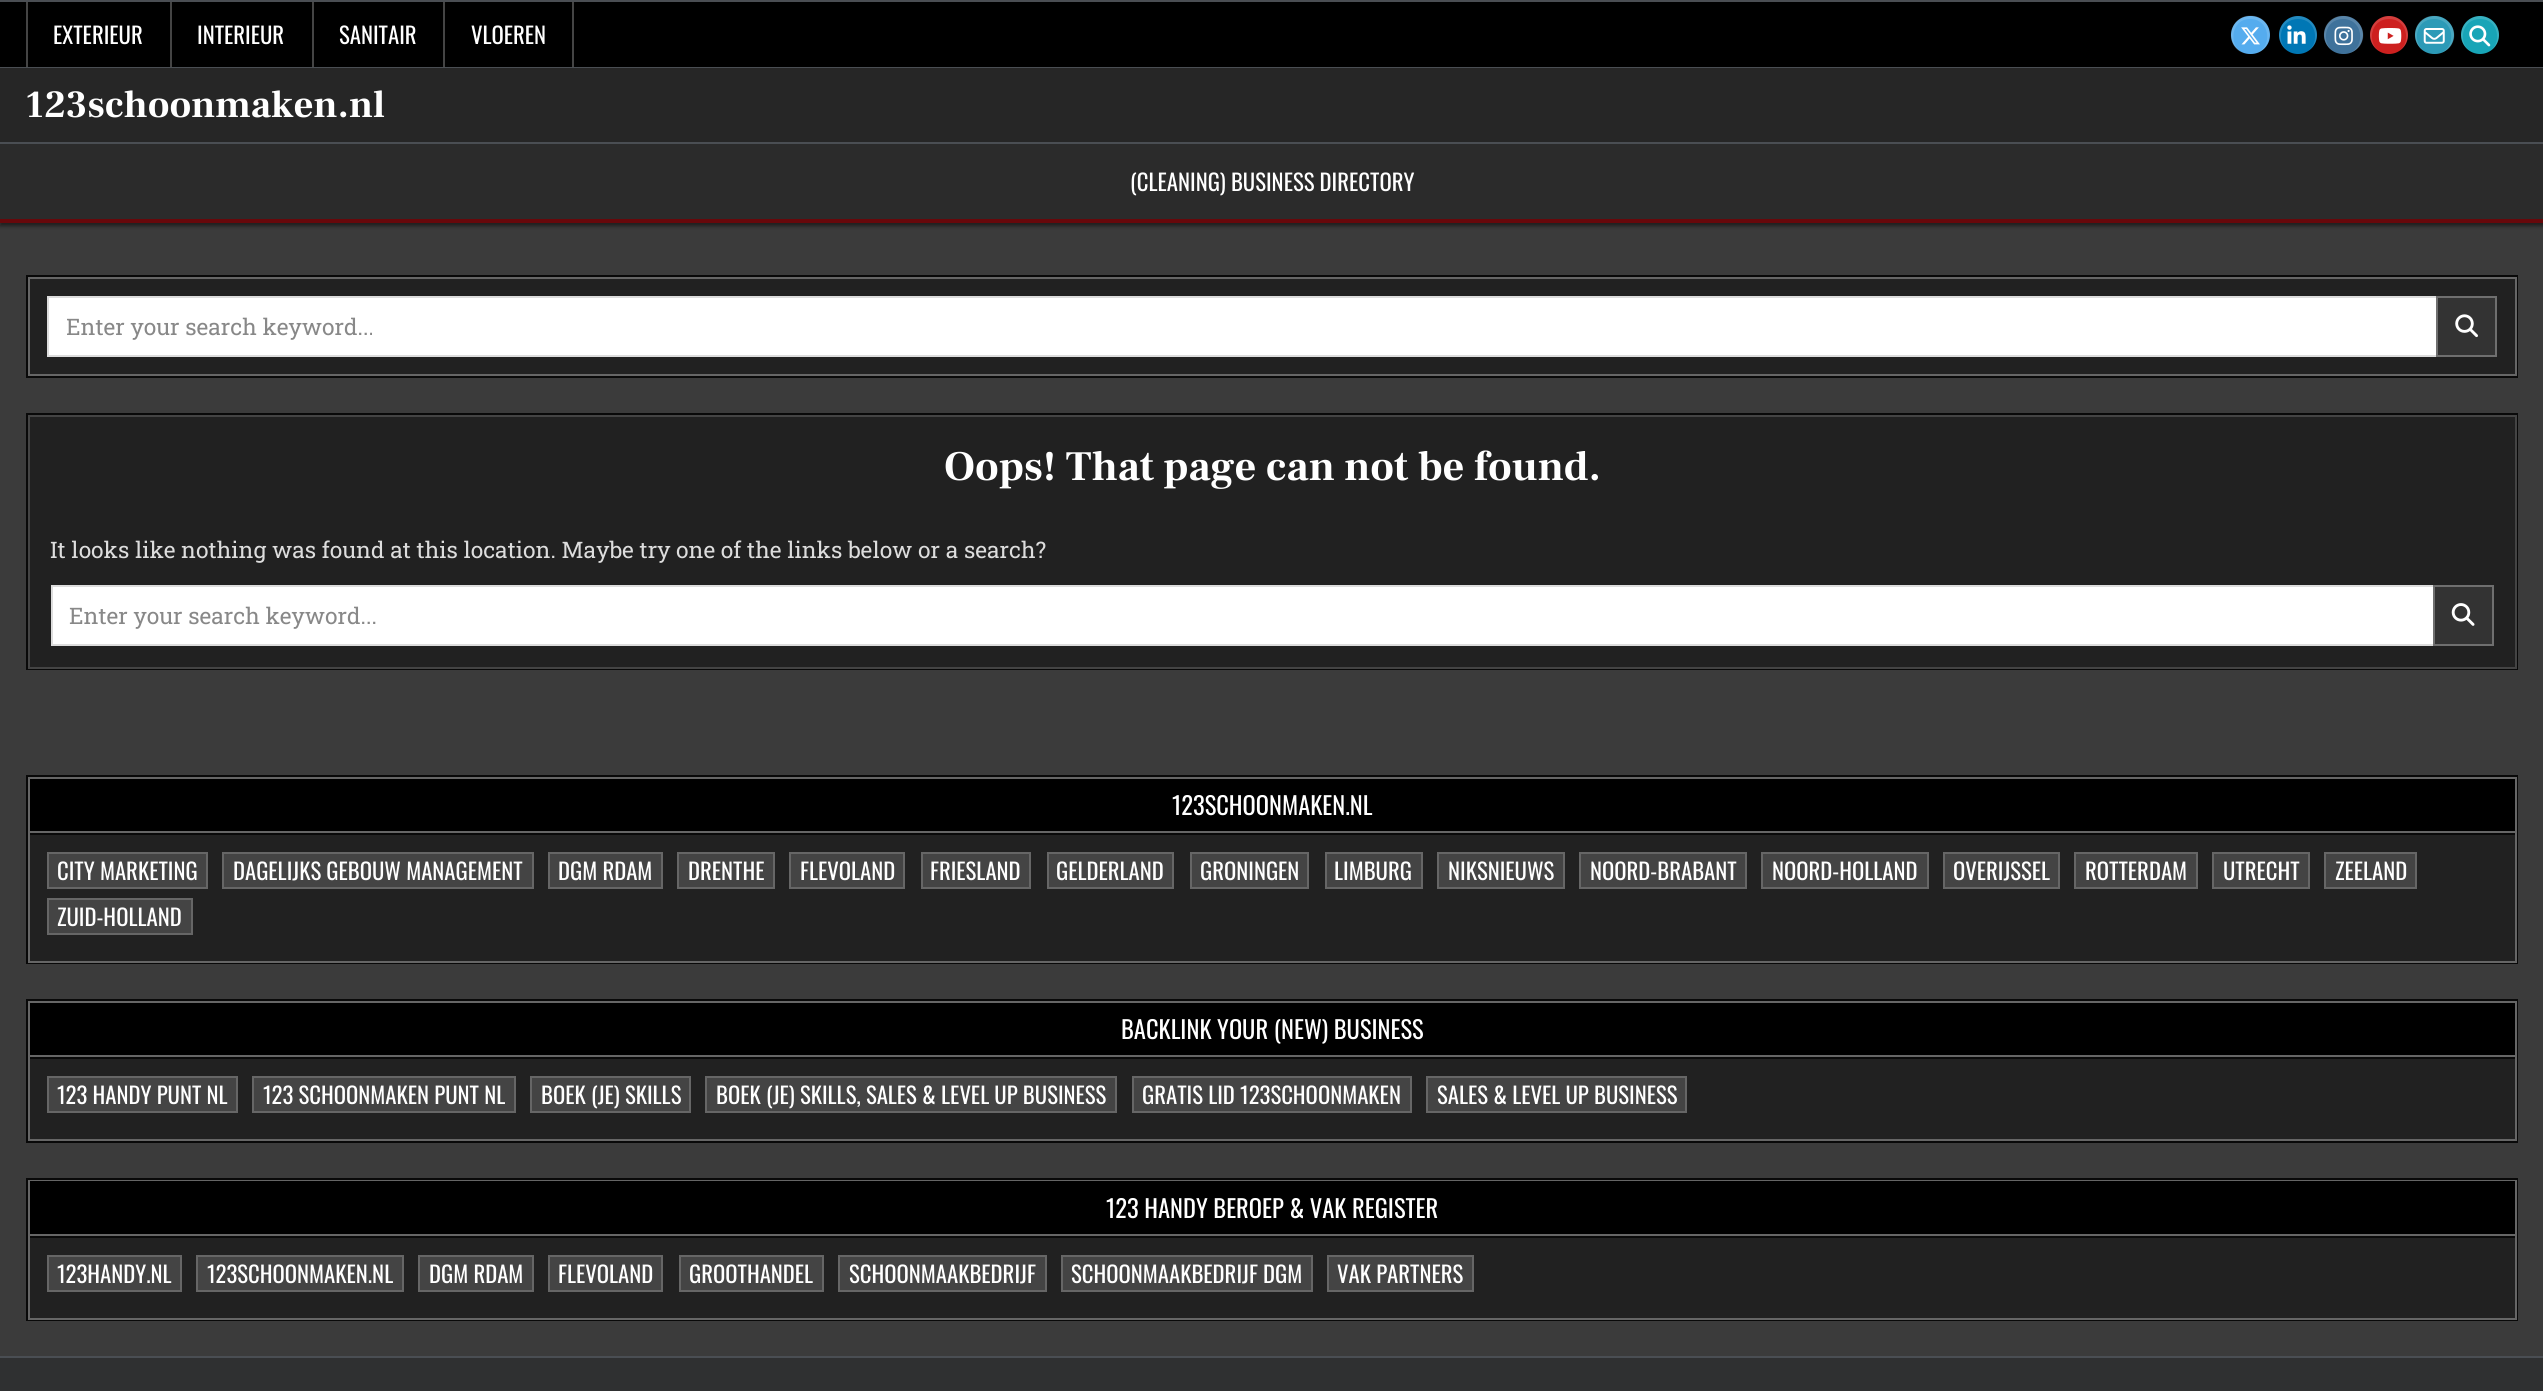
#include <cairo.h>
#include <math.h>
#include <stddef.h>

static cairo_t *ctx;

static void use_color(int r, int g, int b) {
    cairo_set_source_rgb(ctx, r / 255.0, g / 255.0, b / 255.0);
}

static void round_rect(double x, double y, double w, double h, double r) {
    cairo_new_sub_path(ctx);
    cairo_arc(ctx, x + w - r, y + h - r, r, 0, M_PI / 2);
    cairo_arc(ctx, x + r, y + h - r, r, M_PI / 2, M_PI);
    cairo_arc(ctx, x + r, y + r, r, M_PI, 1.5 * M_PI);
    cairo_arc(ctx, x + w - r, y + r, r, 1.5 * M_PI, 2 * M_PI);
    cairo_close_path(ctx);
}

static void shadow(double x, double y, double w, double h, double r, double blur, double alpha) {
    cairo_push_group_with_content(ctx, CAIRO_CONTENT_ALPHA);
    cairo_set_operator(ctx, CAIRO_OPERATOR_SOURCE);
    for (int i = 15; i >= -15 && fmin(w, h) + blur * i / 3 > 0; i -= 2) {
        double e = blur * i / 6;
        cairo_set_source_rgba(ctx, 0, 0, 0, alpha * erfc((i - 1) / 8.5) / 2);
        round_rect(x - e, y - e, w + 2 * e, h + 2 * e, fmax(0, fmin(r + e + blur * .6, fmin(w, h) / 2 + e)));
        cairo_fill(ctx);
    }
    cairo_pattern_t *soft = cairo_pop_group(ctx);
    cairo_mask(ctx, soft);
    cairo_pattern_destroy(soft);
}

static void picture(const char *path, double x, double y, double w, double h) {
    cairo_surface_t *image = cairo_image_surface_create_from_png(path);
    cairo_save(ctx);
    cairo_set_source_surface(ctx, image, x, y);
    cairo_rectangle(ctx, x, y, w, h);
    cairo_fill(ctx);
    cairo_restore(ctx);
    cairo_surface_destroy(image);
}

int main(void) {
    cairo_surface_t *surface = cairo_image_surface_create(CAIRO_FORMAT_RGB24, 2543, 1391);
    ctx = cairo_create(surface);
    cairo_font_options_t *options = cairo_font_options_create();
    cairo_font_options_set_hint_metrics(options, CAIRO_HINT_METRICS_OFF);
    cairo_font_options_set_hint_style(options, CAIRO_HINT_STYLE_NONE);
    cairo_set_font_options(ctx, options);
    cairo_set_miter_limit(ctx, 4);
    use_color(59, 59, 59);
    cairo_paint(ctx);
    use_color(0, 0, 0);
    cairo_rectangle(ctx, 0, 2, 2543, 65);
    cairo_fill(ctx);
    use_color(74, 78, 83);
    cairo_rectangle(ctx, 0, 0, 2543, 2);
    cairo_fill(ctx);
    cairo_rectangle(ctx, 0, 67, 2543, 1);
    cairo_fill(ctx);
    use_color(68, 68, 68);
    cairo_rectangle(ctx, 170, 2, 2, 65);
    cairo_fill(ctx);
    cairo_rectangle(ctx, 26, 2, 2, 65);
    cairo_fill(ctx);
    cairo_select_font_face(ctx, "Oswald", CAIRO_FONT_SLANT_NORMAL, CAIRO_FONT_WEIGHT_NORMAL);
    cairo_set_font_size(ctx, 22.75);
    use_color(255, 255, 255);
    cairo_move_to(ctx, 53, 44);
    cairo_show_text(ctx, "EXTERIEUR");
    use_color(68, 68, 68);
    cairo_rectangle(ctx, 312, 2, 2, 65);
    cairo_fill(ctx);
    use_color(255, 255, 255);
    cairo_move_to(ctx, 197, 44);
    cairo_show_text(ctx, "INTERIEUR");
    use_color(68, 68, 68);
    cairo_rectangle(ctx, 443, 2, 2, 65);
    cairo_fill(ctx);
    use_color(255, 255, 255);
    cairo_move_to(ctx, 339, 44);
    cairo_show_text(ctx, "SANITAIR");
    use_color(68, 68, 68);
    cairo_rectangle(ctx, 572, 2, 2, 65);
    cairo_fill(ctx);
    use_color(255, 255, 255);
    cairo_move_to(ctx, 471, 44);
    cairo_show_text(ctx, "VLOEREN");
    use_color(85, 172, 238);
    round_rect(2231, 16, 39, 38, 19);
    cairo_fill(ctx);
    cairo_set_source_rgba(ctx, 1, 1, 1, 0.14);
    cairo_new_path(ctx);
    cairo_move_to(ctx, 2250, 19);
    cairo_curve_to(ctx, 2273, 19, 2273, 54, 2250, 54);
    cairo_curve_to(ctx, 2273, 54, 2277, 21, 2255, 16);
    cairo_curve_to(ctx, 2229, 11, 2221, 48, 2246, 54);
    cairo_curve_to(ctx, 2228, 50, 2229, 19, 2250, 19);
    cairo_close_path(ctx);
    cairo_fill(ctx);
    picture("img1.png", 2241, 27, 19, 18);
    use_color(0, 119, 181);
    cairo_arc(ctx, 2298, 35, 19, 0, 2 * M_PI);
    cairo_fill(ctx);
    cairo_set_source_rgba(ctx, 1, 1, 1, 0.14);
    cairo_new_path(ctx);
    cairo_move_to(ctx, 2298, 19);
    cairo_curve_to(ctx, 2317, 19, 2320, 43, 2308, 51);
    cairo_curve_to(ctx, 2313, 48, 2317, 42, 2317, 35);
    cairo_curve_to(ctx, 2317, 25, 2308, 16, 2298, 16);
    cairo_curve_to(ctx, 2288, 16, 2279, 25, 2279, 35);
    cairo_curve_to(ctx, 2279, 42, 2283, 48, 2288, 51);
    cairo_curve_to(ctx, 2276, 43, 2279, 19, 2298, 19);
    cairo_close_path(ctx);
    cairo_fill(ctx);
    picture("img2.png", 2287, 25, 19, 19);
    use_color(63, 114, 155);
    round_rect(2324, 16, 39, 38, 19);
    cairo_fill(ctx);
    cairo_set_source_rgba(ctx, 1, 1, 1, 0.14);
    cairo_new_path(ctx);
    cairo_move_to(ctx, 2343, 19);
    cairo_curve_to(ctx, 2366, 19, 2366, 54, 2343, 54);
    cairo_curve_to(ctx, 2350, 54, 2356, 51, 2360, 46);
    cairo_curve_to(ctx, 2374, 24, 2341, 4, 2327, 24);
    cairo_curve_to(ctx, 2321, 33, 2324, 46, 2333, 51);
    cairo_curve_to(ctx, 2321, 43, 2324, 19, 2343, 19);
    cairo_close_path(ctx);
    cairo_fill(ctx);
    picture("img3.png", 2334, 26, 19, 20);
    use_color(205, 32, 31);
    cairo_arc(ctx, 2389, 35, 19, 0, 2 * M_PI);
    cairo_fill(ctx);
    cairo_set_source_rgba(ctx, 1, 1, 1, 0.14);
    cairo_new_path(ctx);
    cairo_move_to(ctx, 2389, 19);
    cairo_curve_to(ctx, 2408, 19, 2411, 43, 2399, 51);
    cairo_curve_to(ctx, 2404, 48, 2408, 42, 2408, 35);
    cairo_curve_to(ctx, 2408, 25, 2399, 16, 2389, 16);
    cairo_curve_to(ctx, 2379, 16, 2370, 25, 2370, 35);
    cairo_curve_to(ctx, 2370, 42, 2374, 48, 2379, 51);
    cairo_curve_to(ctx, 2367, 43, 2370, 19, 2389, 19);
    cairo_close_path(ctx);
    cairo_fill(ctx);
    picture("img4.png", 2378, 28, 24, 16);
    use_color(44, 154, 183);
    round_rect(2415, 16, 39, 38, 19);
    cairo_fill(ctx);
    cairo_set_source_rgba(ctx, 1, 1, 1, 0.14);
    cairo_new_path(ctx);
    cairo_move_to(ctx, 2434, 19);
    cairo_curve_to(ctx, 2457, 19, 2457, 54, 2434, 54);
    cairo_curve_to(ctx, 2441, 54, 2447, 51, 2451, 46);
    cairo_curve_to(ctx, 2465, 24, 2432, 4, 2418, 24);
    cairo_curve_to(ctx, 2412, 33, 2415, 46, 2424, 51);
    cairo_curve_to(ctx, 2412, 43, 2415, 19, 2434, 19);
    cairo_close_path(ctx);
    cairo_fill(ctx);
    picture("img5.png", 2423, 28, 22, 16);
    use_color(24, 165, 183);
    cairo_arc(ctx, 2480, 35, 19, 0, 2 * M_PI);
    cairo_fill(ctx);
    cairo_set_source_rgba(ctx, 1, 1, 1, 0.14);
    cairo_new_path(ctx);
    cairo_move_to(ctx, 2480, 19);
    cairo_curve_to(ctx, 2499, 19, 2502, 43, 2490, 51);
    cairo_curve_to(ctx, 2495, 48, 2499, 42, 2499, 35);
    cairo_curve_to(ctx, 2499, 25, 2490, 16, 2480, 16);
    cairo_curve_to(ctx, 2470, 16, 2461, 25, 2461, 35);
    cairo_curve_to(ctx, 2461, 42, 2465, 48, 2470, 51);
    cairo_curve_to(ctx, 2458, 43, 2461, 19, 2480, 19);
    cairo_close_path(ctx);
    cairo_fill(ctx);
    picture("img6.png", 2469, 25, 22, 22);
    use_color(0, 0, 0);
    shadow(0, 145, 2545, 81, 0, 2, 0.5);
    use_color(38, 38, 38);
    cairo_rectangle(ctx, 0, 68, 2543, 74);
    cairo_fill(ctx);
    cairo_select_font_face(ctx, "Frank Ruhl Libre", CAIRO_FONT_SLANT_NORMAL, CAIRO_FONT_WEIGHT_BOLD);
    cairo_set_font_size(ctx, 38.5);
    use_color(255, 255, 255);
    cairo_move_to(ctx, 25, 117);
    cairo_show_text(ctx, "123schoonmaken.nl");
    use_color(43, 43, 43);
    cairo_rectangle(ctx, 0, 144, 2543, 75);
    cairo_fill(ctx);
    use_color(74, 78, 83);
    cairo_rectangle(ctx, 0, 142, 2543, 2);
    cairo_fill(ctx);
    use_color(103, 8, 11);
    cairo_rectangle(ctx, 0, 219, 2543, 4);
    cairo_fill(ctx);
    cairo_select_font_face(ctx, "Oswald", CAIRO_FONT_SLANT_NORMAL, CAIRO_FONT_WEIGHT_NORMAL);
    cairo_set_font_size(ctx, 22.75);
    use_color(255, 255, 255);
    cairo_move_to(ctx, 1130, 191);
    cairo_show_text(ctx, "(CLEANING) BUSINESS DIRECTORY");
    use_color(33, 33, 33);
    cairo_rectangle(ctx, 30, 279, 2485, 95);
    cairo_fill(ctx);
    cairo_rectangle(ctx, 27, 276, 2490, 101);
    use_color(9, 9, 9);
    cairo_stroke(ctx);
    cairo_rectangle(ctx, 29, 278, 2487, 97);
    use_color(102, 102, 102);
    cairo_stroke(ctx);
    use_color(255, 255, 255);
    cairo_rectangle(ctx, 49, 298, 2387, 57);
    cairo_fill(ctx);
    cairo_rectangle(ctx, 48, 297, 2448, 59);
    use_color(221, 221, 221);
    cairo_stroke(ctx);
    cairo_save(ctx);
    cairo_rectangle(ctx, 67, 312, 2404, 31);
    cairo_clip(ctx);
    cairo_select_font_face(ctx, "Roboto Slab", CAIRO_FONT_SLANT_NORMAL, CAIRO_FONT_WEIGHT_NORMAL);
    use_color(136, 136, 136);
    cairo_move_to(ctx, 66, 335);
    cairo_show_text(ctx, "Enter your search keyword...");
    cairo_restore(ctx);
    use_color(51, 51, 51);
    cairo_rectangle(ctx, 2437, 297, 59, 59);
    cairo_fill_preserve(ctx);
    use_color(111, 111, 111);
    cairo_stroke(ctx);
    picture("img7.png", 2455, 314, 23, 24);
    use_color(33, 33, 33);
    cairo_rectangle(ctx, 30, 417, 2485, 250);
    cairo_fill(ctx);
    cairo_rectangle(ctx, 27, 414, 2490, 255);
    use_color(9, 9, 9);
    cairo_stroke(ctx);
    cairo_rectangle(ctx, 29, 416, 2487, 252);
    use_color(68, 68, 68);
    cairo_stroke(ctx);
    cairo_select_font_face(ctx, "Frank Ruhl Libre", CAIRO_FONT_SLANT_NORMAL, CAIRO_FONT_WEIGHT_BOLD);
    cairo_set_font_size(ctx, 42);
    use_color(255, 255, 255);
    cairo_move_to(ctx, 944, 480);
    cairo_show_text(ctx, "Oops! That page can not be found.");
    cairo_select_font_face(ctx, "Roboto Slab", CAIRO_FONT_SLANT_NORMAL, CAIRO_FONT_WEIGHT_NORMAL);
    cairo_set_font_size(ctx, 22.75);
    use_color(221, 221, 221);
    cairo_move_to(ctx, 50, 558);
    cairo_show_text(ctx, "It looks like nothing was found at this location. Maybe try one of the links below or a search?");
    use_color(255, 255, 255);
    cairo_rectangle(ctx, 53, 587, 2380, 57);
    cairo_fill(ctx);
    cairo_rectangle(ctx, 52, 586, 2441, 59);
    use_color(221, 221, 221);
    cairo_stroke(ctx);
    use_color(136, 136, 136);
    cairo_move_to(ctx, 69, 624);
    cairo_show_text(ctx, "Enter your search keyword...");
    use_color(51, 51, 51);
    cairo_rectangle(ctx, 2434, 586, 59, 59);
    cairo_fill_preserve(ctx);
    use_color(111, 111, 111);
    cairo_stroke(ctx);
    picture("img8.png", 2451, 603, 24, 23);
    use_color(33, 33, 33);
    cairo_rectangle(ctx, 30, 835, 2485, 126);
    cairo_fill(ctx);
    cairo_rectangle(ctx, 27, 776, 2490, 187);
    use_color(9, 9, 9);
    cairo_stroke(ctx);
    cairo_rectangle(ctx, 29, 778, 2487, 184);
    use_color(102, 102, 102);
    cairo_stroke(ctx);
    use_color(0, 0, 0);
    cairo_rectangle(ctx, 30, 779, 2485, 52);
    cairo_fill(ctx);
    use_color(9, 9, 9);
    cairo_rectangle(ctx, 30, 833, 2485, 2);
    cairo_fill(ctx);
    use_color(102, 102, 102);
    cairo_rectangle(ctx, 30, 831, 2485, 2);
    cairo_fill(ctx);
    cairo_select_font_face(ctx, "Oswald", CAIRO_FONT_SLANT_NORMAL, CAIRO_FONT_WEIGHT_NORMAL);
    cairo_set_font_size(ctx, 24.5);
    use_color(255, 255, 255);
    cairo_move_to(ctx, 1172, 815);
    cairo_show_text(ctx, "123SCHOONMAKEN.NL");
    use_color(68, 68, 68);
    cairo_rectangle(ctx, 48, 853, 159, 35);
    cairo_fill_preserve(ctx);
    use_color(102, 102, 102);
    cairo_stroke(ctx);
    cairo_set_font_size(ctx, 22.75);
    use_color(255, 255, 255);
    cairo_move_to(ctx, 57, 880);
    cairo_show_text(ctx, "CITY MARKETING");
    use_color(68, 68, 68);
    cairo_rectangle(ctx, 223, 853, 310, 35);
    cairo_fill_preserve(ctx);
    use_color(102, 102, 102);
    cairo_stroke(ctx);
    use_color(255, 255, 255);
    cairo_move_to(ctx, 233, 880);
    cairo_show_text(ctx, "DAGELIJKS GEBOUW MANAGEMENT");
    use_color(68, 68, 68);
    cairo_rectangle(ctx, 549, 853, 113, 35);
    cairo_fill_preserve(ctx);
    use_color(102, 102, 102);
    cairo_stroke(ctx);
    use_color(255, 255, 255);
    cairo_move_to(ctx, 558, 880);
    cairo_show_text(ctx, "DGM RDAM");
    use_color(68, 68, 68);
    cairo_rectangle(ctx, 678, 853, 96, 35);
    cairo_fill_preserve(ctx);
    use_color(102, 102, 102);
    cairo_stroke(ctx);
    use_color(255, 255, 255);
    cairo_move_to(ctx, 688, 880);
    cairo_show_text(ctx, "DRENTHE");
    use_color(68, 68, 68);
    cairo_rectangle(ctx, 790, 853, 114, 35);
    cairo_fill_preserve(ctx);
    use_color(102, 102, 102);
    cairo_stroke(ctx);
    use_color(255, 255, 255);
    cairo_move_to(ctx, 800, 880);
    cairo_show_text(ctx, "FLEVOLAND");
    use_color(68, 68, 68);
    cairo_rectangle(ctx, 922, 853, 108, 35);
    cairo_fill_preserve(ctx);
    use_color(102, 102, 102);
    cairo_stroke(ctx);
    use_color(255, 255, 255);
    cairo_move_to(ctx, 930, 880);
    cairo_show_text(ctx, "FRIESLAND");
    use_color(68, 68, 68);
    cairo_rectangle(ctx, 1048, 853, 125, 35);
    cairo_fill_preserve(ctx);
    use_color(102, 102, 102);
    cairo_stroke(ctx);
    use_color(255, 255, 255);
    cairo_move_to(ctx, 1056, 880);
    cairo_show_text(ctx, "GELDERLAND");
    use_color(68, 68, 68);
    cairo_rectangle(ctx, 1191, 853, 117, 35);
    cairo_fill_preserve(ctx);
    use_color(102, 102, 102);
    cairo_stroke(ctx);
    use_color(255, 255, 255);
    cairo_move_to(ctx, 1200, 880);
    cairo_show_text(ctx, "GRONINGEN");
    use_color(68, 68, 68);
    cairo_rectangle(ctx, 1326, 853, 96, 35);
    cairo_fill_preserve(ctx);
    use_color(102, 102, 102);
    cairo_stroke(ctx);
    use_color(255, 255, 255);
    cairo_move_to(ctx, 1334, 880);
    cairo_show_text(ctx, "LIMBURG");
    use_color(68, 68, 68);
    cairo_rectangle(ctx, 1438, 853, 126, 35);
    cairo_fill_preserve(ctx);
    use_color(102, 102, 102);
    cairo_stroke(ctx);
    use_color(255, 255, 255);
    cairo_move_to(ctx, 1448, 880);
    cairo_show_text(ctx, "NIKSNIEUWS");
    use_color(68, 68, 68);
    cairo_rectangle(ctx, 1580, 853, 166, 35);
    cairo_fill_preserve(ctx);
    use_color(102, 102, 102);
    cairo_stroke(ctx);
    use_color(255, 255, 255);
    cairo_move_to(ctx, 1590, 880);
    cairo_show_text(ctx, "NOORD-BRABANT");
    use_color(68, 68, 68);
    cairo_rectangle(ctx, 1762, 853, 166, 35);
    cairo_fill_preserve(ctx);
    use_color(102, 102, 102);
    cairo_stroke(ctx);
    use_color(255, 255, 255);
    cairo_move_to(ctx, 1772, 880);
    cairo_show_text(ctx, "NOORD-HOLLAND");
    use_color(68, 68, 68);
    cairo_rectangle(ctx, 1944, 853, 115, 35);
    cairo_fill_preserve(ctx);
    use_color(102, 102, 102);
    cairo_stroke(ctx);
    use_color(255, 255, 255);
    cairo_move_to(ctx, 1953, 880);
    cairo_show_text(ctx, "OVERIJSSEL");
    use_color(68, 68, 68);
    cairo_rectangle(ctx, 2075, 853, 122, 35);
    cairo_fill_preserve(ctx);
    use_color(102, 102, 102);
    cairo_stroke(ctx);
    use_color(255, 255, 255);
    cairo_move_to(ctx, 2085, 880);
    cairo_show_text(ctx, "ROTTERDAM");
    use_color(68, 68, 68);
    cairo_rectangle(ctx, 2213, 853, 96, 35);
    cairo_fill_preserve(ctx);
    use_color(102, 102, 102);
    cairo_stroke(ctx);
    use_color(255, 255, 255);
    cairo_move_to(ctx, 2223, 880);
    cairo_show_text(ctx, "UTRECHT");
    use_color(68, 68, 68);
    cairo_rectangle(ctx, 2325, 853, 91, 35);
    cairo_fill_preserve(ctx);
    use_color(102, 102, 102);
    cairo_stroke(ctx);
    use_color(255, 255, 255);
    cairo_move_to(ctx, 2335, 880);
    cairo_show_text(ctx, "ZEELAND");
    use_color(68, 68, 68);
    cairo_rectangle(ctx, 48, 899, 144, 35);
    cairo_fill_preserve(ctx);
    use_color(102, 102, 102);
    cairo_stroke(ctx);
    use_color(255, 255, 255);
    cairo_move_to(ctx, 57, 926);
    cairo_show_text(ctx, "ZUID-HOLLAND");
    use_color(33, 33, 33);
    cairo_rectangle(ctx, 30, 1059, 2485, 80);
    cairo_fill(ctx);
    cairo_rectangle(ctx, 27, 1000, 2490, 142);
    use_color(9, 9, 9);
    cairo_stroke(ctx);
    cairo_rectangle(ctx, 29, 1002, 2487, 138);
    use_color(102, 102, 102);
    cairo_stroke(ctx);
    use_color(0, 0, 0);
    cairo_rectangle(ctx, 30, 1003, 2485, 52);
    cairo_fill(ctx);
    use_color(9, 9, 9);
    cairo_rectangle(ctx, 30, 1057, 2485, 2);
    cairo_fill(ctx);
    use_color(102, 102, 102);
    cairo_rectangle(ctx, 30, 1055, 2485, 2);
    cairo_fill(ctx);
    cairo_set_font_size(ctx, 24.5);
    use_color(255, 255, 255);
    cairo_move_to(ctx, 1121, 1039);
    cairo_show_text(ctx, "BACKLINK YOUR (NEW) BUSINESS");
    use_color(68, 68, 68);
    cairo_rectangle(ctx, 48, 1077, 189, 35);
    cairo_fill_preserve(ctx);
    use_color(102, 102, 102);
    cairo_stroke(ctx);
    cairo_set_font_size(ctx, 22.75);
    use_color(255, 255, 255);
    cairo_move_to(ctx, 57, 1104);
    cairo_show_text(ctx, "123 HANDY PUNT NL");
    use_color(68, 68, 68);
    cairo_rectangle(ctx, 253, 1077, 262, 35);
    cairo_fill_preserve(ctx);
    use_color(102, 102, 102);
    cairo_stroke(ctx);
    use_color(255, 255, 255);
    cairo_move_to(ctx, 263, 1104);
    cairo_show_text(ctx, "123 SCHOONMAKEN PUNT NL");
    use_color(68, 68, 68);
    cairo_rectangle(ctx, 531, 1077, 159, 35);
    cairo_fill_preserve(ctx);
    use_color(102, 102, 102);
    cairo_stroke(ctx);
    use_color(255, 255, 255);
    cairo_move_to(ctx, 541, 1104);
    cairo_show_text(ctx, "BOEK (JE) SKILLS");
    use_color(68, 68, 68);
    cairo_rectangle(ctx, 706, 1077, 410, 35);
    cairo_fill_preserve(ctx);
    use_color(102, 102, 102);
    cairo_stroke(ctx);
    use_color(255, 255, 255);
    cairo_move_to(ctx, 716, 1104);
    cairo_show_text(ctx, "BOEK (JE) SKILLS, SALES & LEVEL UP BUSINESS");
    use_color(68, 68, 68);
    cairo_rectangle(ctx, 1133, 1077, 278, 35);
    cairo_fill_preserve(ctx);
    use_color(102, 102, 102);
    cairo_stroke(ctx);
    use_color(255, 255, 255);
    cairo_move_to(ctx, 1142, 1104);
    cairo_show_text(ctx, "GRATIS LID 123SCHOONMAKEN");
    use_color(68, 68, 68);
    cairo_rectangle(ctx, 1427, 1077, 259, 35);
    cairo_fill_preserve(ctx);
    use_color(102, 102, 102);
    cairo_stroke(ctx);
    use_color(255, 255, 255);
    cairo_move_to(ctx, 1437, 1104);
    cairo_show_text(ctx, "SALES & LEVEL UP BUSINESS");
    use_color(33, 33, 33);
    cairo_rectangle(ctx, 30, 1238, 2485, 80);
    cairo_fill(ctx);
    cairo_rectangle(ctx, 27, 1179, 2490, 141);
    use_color(9, 9, 9);
    cairo_stroke(ctx);
    cairo_rectangle(ctx, 29, 1181, 2487, 138);
    use_color(102, 102, 102);
    cairo_stroke(ctx);
    use_color(0, 0, 0);
    cairo_rectangle(ctx, 30, 1181, 2485, 53);
    cairo_fill(ctx);
    use_color(9, 9, 9);
    cairo_rectangle(ctx, 30, 1236, 2485, 2);
    cairo_fill(ctx);
    use_color(102, 102, 102);
    cairo_rectangle(ctx, 30, 1234, 2485, 2);
    cairo_fill(ctx);
    cairo_set_font_size(ctx, 24.5);
    use_color(255, 255, 255);
    cairo_move_to(ctx, 1106, 1218);
    cairo_show_text(ctx, "123 HANDY BEROEP & VAK REGISTER");
    use_color(68, 68, 68);
    cairo_rectangle(ctx, 48, 1256, 133, 35);
    cairo_fill_preserve(ctx);
    use_color(102, 102, 102);
    cairo_stroke(ctx);
    cairo_set_font_size(ctx, 22.75);
    use_color(255, 255, 255);
    cairo_move_to(ctx, 57, 1283);
    cairo_show_text(ctx, "123HANDY.NL");
    use_color(68, 68, 68);
    cairo_rectangle(ctx, 197, 1256, 206, 35);
    cairo_fill_preserve(ctx);
    use_color(102, 102, 102);
    cairo_stroke(ctx);
    use_color(255, 255, 255);
    cairo_move_to(ctx, 207, 1283);
    cairo_show_text(ctx, "123SCHOONMAKEN.NL");
    use_color(68, 68, 68);
    cairo_rectangle(ctx, 419, 1256, 114, 35);
    cairo_fill_preserve(ctx);
    use_color(102, 102, 102);
    cairo_stroke(ctx);
    use_color(255, 255, 255);
    cairo_move_to(ctx, 429, 1283);
    cairo_show_text(ctx, "DGM RDAM");
    use_color(68, 68, 68);
    cairo_rectangle(ctx, 549, 1256, 113, 35);
    cairo_fill_preserve(ctx);
    use_color(102, 102, 102);
    cairo_stroke(ctx);
    use_color(255, 255, 255);
    cairo_move_to(ctx, 558, 1283);
    cairo_show_text(ctx, "FLEVOLAND");
    use_color(68, 68, 68);
    cairo_rectangle(ctx, 680, 1256, 143, 35);
    cairo_fill_preserve(ctx);
    use_color(102, 102, 102);
    cairo_stroke(ctx);
    use_color(255, 255, 255);
    cairo_move_to(ctx, 689, 1283);
    cairo_show_text(ctx, "GROOTHANDEL");
    use_color(68, 68, 68);
    cairo_rectangle(ctx, 839, 1256, 207, 35);
    cairo_fill_preserve(ctx);
    use_color(102, 102, 102);
    cairo_stroke(ctx);
    use_color(255, 255, 255);
    cairo_move_to(ctx, 849, 1283);
    cairo_show_text(ctx, "SCHOONMAAKBEDRIJF");
    use_color(68, 68, 68);
    cairo_rectangle(ctx, 1062, 1256, 250, 35);
    cairo_fill_preserve(ctx);
    use_color(102, 102, 102);
    cairo_stroke(ctx);
    use_color(255, 255, 255);
    cairo_move_to(ctx, 1071, 1283);
    cairo_show_text(ctx, "SCHOONMAAKBEDRIJF DGM");
    use_color(68, 68, 68);
    cairo_rectangle(ctx, 1328, 1256, 145, 35);
    cairo_fill_preserve(ctx);
    use_color(102, 102, 102);
    cairo_stroke(ctx);
    use_color(255, 255, 255);
    cairo_move_to(ctx, 1337, 1283);
    cairo_show_text(ctx, "VAK PARTNERS");
    use_color(47, 48, 49);
    cairo_rectangle(ctx, 0, 1358, 2543, 33);
    cairo_fill(ctx);
    use_color(74, 78, 83);
    cairo_rectangle(ctx, 0, 1356, 2543, 2);
    cairo_fill(ctx);
    cairo_surface_write_to_png(surface, "result.png");
    cairo_font_options_destroy(options);
    cairo_destroy(ctx);
    cairo_surface_destroy(surface);
    return 0;
}
